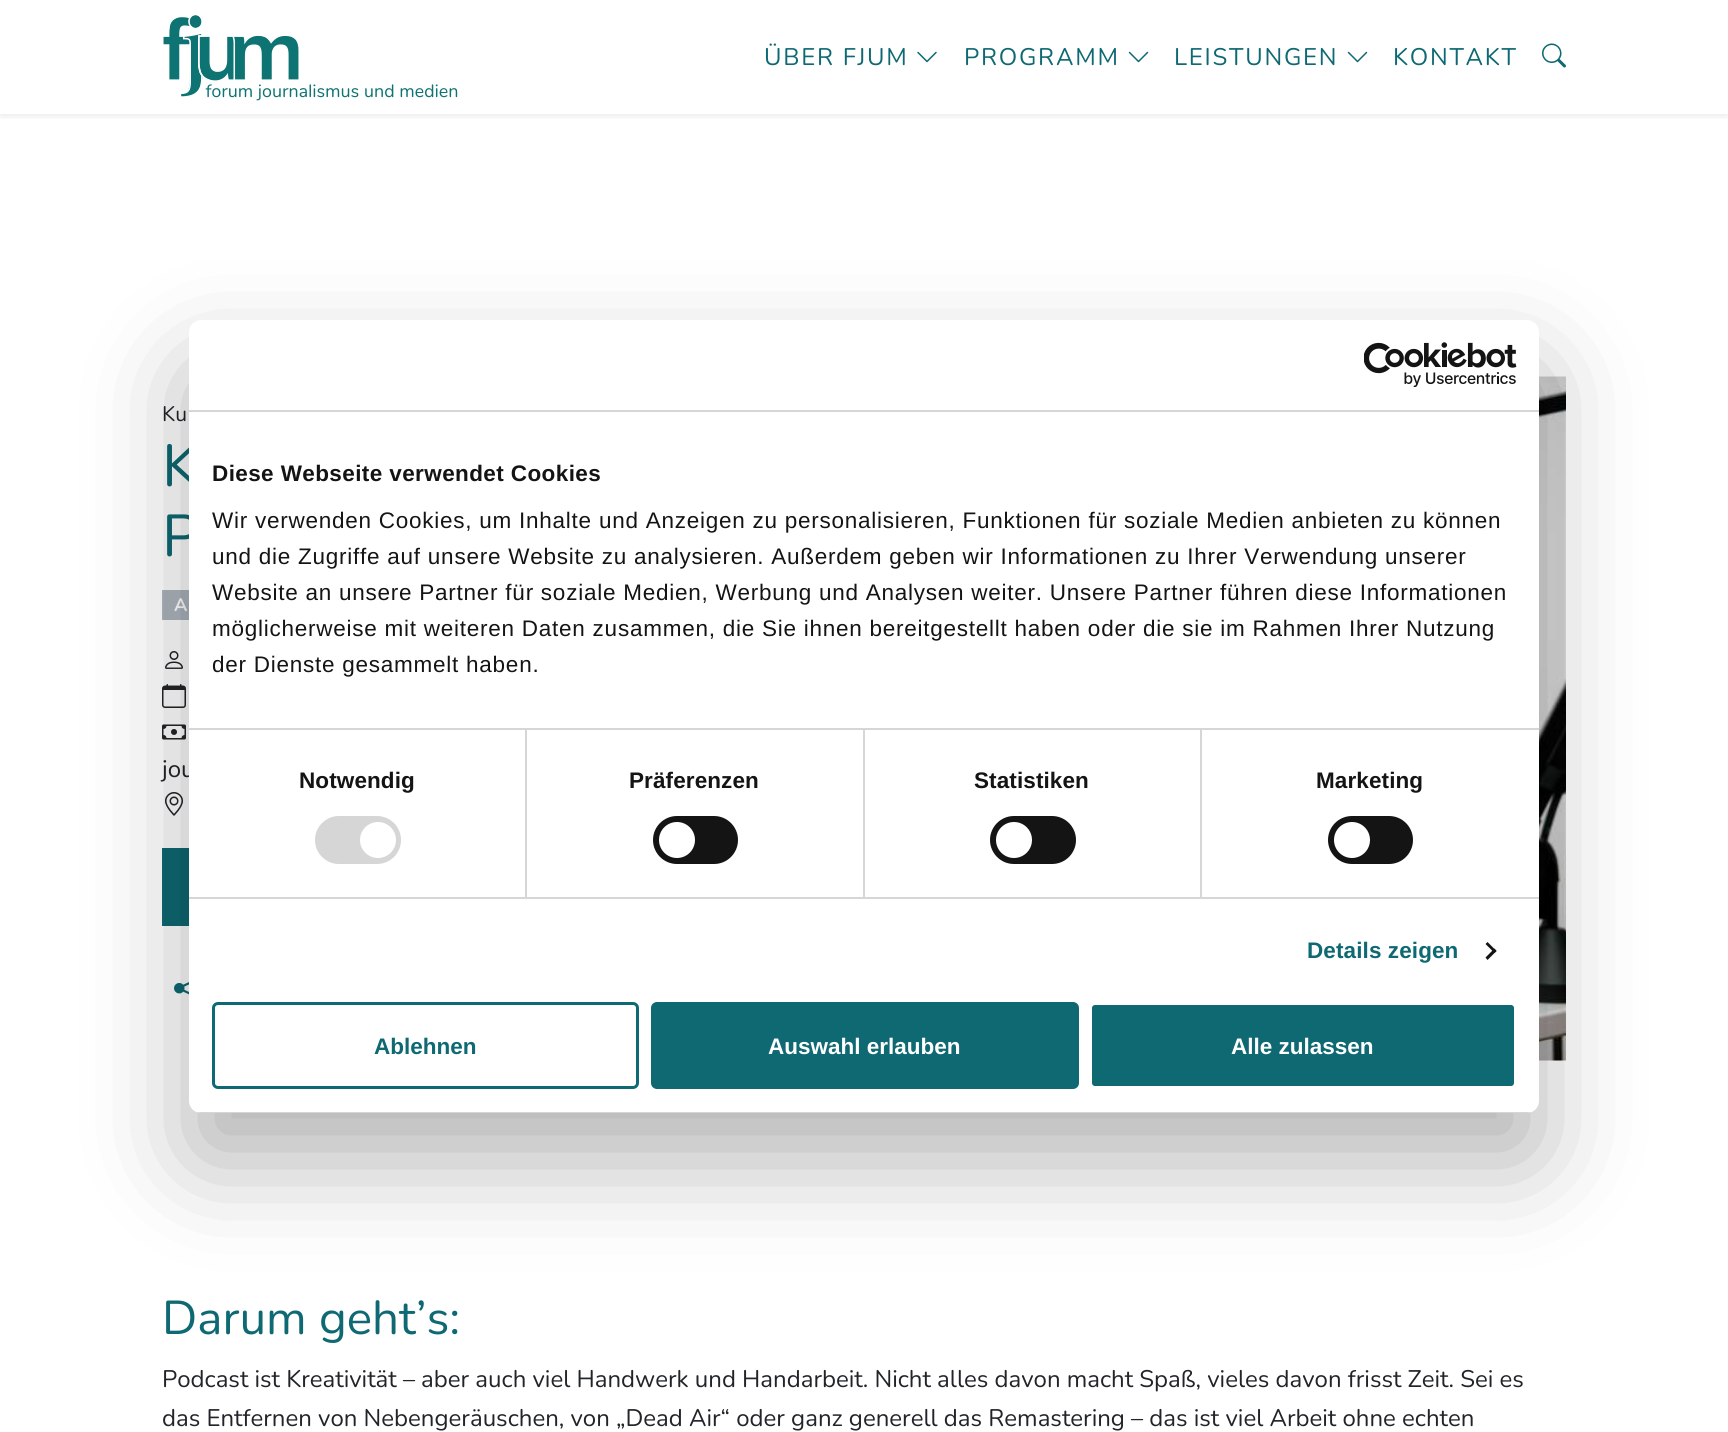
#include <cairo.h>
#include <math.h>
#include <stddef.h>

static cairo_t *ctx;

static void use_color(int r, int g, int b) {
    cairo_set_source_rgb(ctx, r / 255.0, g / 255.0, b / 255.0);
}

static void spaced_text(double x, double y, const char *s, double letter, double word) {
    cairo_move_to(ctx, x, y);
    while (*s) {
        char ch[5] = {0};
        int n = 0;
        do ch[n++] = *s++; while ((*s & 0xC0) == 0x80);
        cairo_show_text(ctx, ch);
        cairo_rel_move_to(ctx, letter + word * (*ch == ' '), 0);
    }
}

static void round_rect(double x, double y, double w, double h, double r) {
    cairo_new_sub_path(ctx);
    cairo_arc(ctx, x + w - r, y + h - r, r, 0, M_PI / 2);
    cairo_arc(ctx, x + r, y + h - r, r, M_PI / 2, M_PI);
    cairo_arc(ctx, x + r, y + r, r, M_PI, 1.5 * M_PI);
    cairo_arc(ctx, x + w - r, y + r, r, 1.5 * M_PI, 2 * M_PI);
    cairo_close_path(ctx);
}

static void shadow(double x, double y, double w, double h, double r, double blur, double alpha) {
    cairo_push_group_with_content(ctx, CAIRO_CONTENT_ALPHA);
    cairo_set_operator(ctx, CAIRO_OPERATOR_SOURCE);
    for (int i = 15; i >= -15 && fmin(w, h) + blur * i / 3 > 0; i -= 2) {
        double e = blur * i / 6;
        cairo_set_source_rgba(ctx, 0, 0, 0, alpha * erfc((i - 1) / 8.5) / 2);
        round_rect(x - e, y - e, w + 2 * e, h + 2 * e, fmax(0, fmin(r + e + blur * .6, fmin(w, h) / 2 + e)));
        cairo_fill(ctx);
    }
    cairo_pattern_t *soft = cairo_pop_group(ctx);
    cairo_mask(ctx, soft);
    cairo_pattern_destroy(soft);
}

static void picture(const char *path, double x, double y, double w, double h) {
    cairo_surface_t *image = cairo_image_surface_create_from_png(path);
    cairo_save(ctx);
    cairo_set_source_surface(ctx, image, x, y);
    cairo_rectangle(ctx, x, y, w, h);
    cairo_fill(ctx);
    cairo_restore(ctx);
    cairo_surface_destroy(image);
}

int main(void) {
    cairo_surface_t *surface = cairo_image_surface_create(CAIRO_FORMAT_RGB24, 1728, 1432);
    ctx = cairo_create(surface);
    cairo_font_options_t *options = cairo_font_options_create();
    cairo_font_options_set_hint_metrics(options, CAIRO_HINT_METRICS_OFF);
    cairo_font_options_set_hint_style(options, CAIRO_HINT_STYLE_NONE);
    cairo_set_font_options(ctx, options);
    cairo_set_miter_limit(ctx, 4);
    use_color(255, 255, 255);
    cairo_paint(ctx);
    cairo_save(ctx);
    cairo_rectangle(ctx, 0, 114, 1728, 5);
    cairo_clip(ctx);
    use_color(0, 0, 0);
    shadow(0, 3, 1728, 114, 0, 3, 0.07);
    cairo_restore(ctx);
    picture("img1.png", 163, 15, 295, 86);
    cairo_select_font_face(ctx, "Nunito", CAIRO_FONT_SLANT_NORMAL, CAIRO_FONT_WEIGHT_NORMAL);
    cairo_set_font_size(ctx, 24);
    use_color(14, 105, 115);
    spaced_text(764, 65, "ÜBER FJUM", 1.75, 0);
    picture("img2.png", 917, 51, 20, 12);
    spaced_text(964, 65, "PROGRAMM", 1.75, 0);
    picture("img3.png", 1128, 51, 21, 12);
    spaced_text(1174, 65, "LEISTUNGEN", 1.75, 0);
    picture("img3.png", 1347, 51, 21, 12);
    spaced_text(1393, 65, "KONTAKT", 1.75, 0);
    picture("img4.png", 1542, 43, 24, 25);
    cairo_set_font_size(ctx, 21);
    use_color(33, 37, 41);
    cairo_move_to(ctx, 162, 421);
    cairo_show_text(ctx, "Ku");
    cairo_set_font_size(ctx, 59);
    use_color(14, 105, 115);
    cairo_move_to(ctx, 162, 486);
    cairo_show_text(ctx, "K");
    cairo_move_to(ctx, 162, 556);
    cairo_show_text(ctx, "P");
    use_color(173, 181, 189);
    cairo_rectangle(ctx, 162, 590, 27, 30);
    cairo_fill(ctx);
    cairo_select_font_face(ctx, "Nunito", CAIRO_FONT_SLANT_NORMAL, CAIRO_FONT_WEIGHT_BOLD);
    cairo_set_font_size(ctx, 18);
    use_color(255, 255, 255);
    cairo_move_to(ctx, 174, 611);
    cairo_show_text(ctx, "A");
    picture("img5.png", 165, 651, 18, 18);
    picture("img6.png", 162, 684, 24, 24);
    picture("img7.png", 162, 724, 24, 16);
    cairo_select_font_face(ctx, "Nunito", CAIRO_FONT_SLANT_NORMAL, CAIRO_FONT_WEIGHT_NORMAL);
    cairo_set_font_size(ctx, 24);
    use_color(33, 37, 41);
    cairo_move_to(ctx, 162, 777);
    cairo_show_text(ctx, "jou");
    picture("img8.png", 165, 792, 18, 24);
    use_color(14, 105, 115);
    cairo_rectangle(ctx, 162, 848, 27, 78);
    cairo_fill(ctx);
    picture("img9.png", 174, 982, 15, 13);
    picture("img10.png", 1539, 376, 27, 685);
    use_color(0, 0, 0);
    shadow(189, 368, 1350, 793, 12, 51, 0.3);
    use_color(255, 255, 255);
    round_rect(189, 320, 1350, 793, 12);
    cairo_fill(ctx);
    use_color(214, 214, 214);
    cairo_rectangle(ctx, 189, 410, 1350, 2);
    cairo_fill(ctx);
    picture("img11.png", 1364, 342, 153, 45);
    cairo_rectangle(ctx, 525, 729, 2, 168);
    cairo_fill(ctx);
    cairo_rectangle(ctx, 863, 729, 2, 168);
    cairo_fill(ctx);
    cairo_rectangle(ctx, 1200, 729, 2, 168);
    cairo_fill(ctx);
    cairo_rectangle(ctx, 189, 728, 1350, 2);
    cairo_fill(ctx);
    cairo_select_font_face(ctx, "Liberation Sans", CAIRO_FONT_SLANT_NORMAL, CAIRO_FONT_WEIGHT_BOLD);
    cairo_set_font_size(ctx, 22.5);
    use_color(20, 20, 20);
    spaced_text(212, 481, "Diese Webseite verwendet Cookies", 0.4, 0);
    cairo_select_font_face(ctx, "Liberation Sans", CAIRO_FONT_SLANT_NORMAL, CAIRO_FONT_WEIGHT_NORMAL);
    spaced_text(212, 528, "Wir verwenden Cookies, um Inhalte und Anzeigen zu personalisieren, Funktionen für soziale Medien anbieten zu können", 0.75, 0);
    spaced_text(212, 564, "und die Zugriffe auf unsere Website zu analysieren. Außerdem geben wir Informationen zu Ihrer Verwendung unserer", 0.75, 0);
    spaced_text(212, 600, "Website an unsere Partner für soziale Medien, Werbung und Analysen weiter. Unsere Partner führen diese Informationen", 0.75, 0);
    spaced_text(212, 636, "möglicherweise mit weiteren Daten zusammen, die Sie ihnen bereitgestellt haben oder die sie im Rahmen Ihrer Nutzung", 0.75, 0);
    spaced_text(212, 672, "der Dienste gesammelt haben.", 0.75, 0);
    use_color(214, 214, 214);
    cairo_rectangle(ctx, 189, 897, 1350, 2);
    cairo_fill(ctx);
    cairo_select_font_face(ctx, "Liberation Sans", CAIRO_FONT_SLANT_NORMAL, CAIRO_FONT_WEIGHT_BOLD);
    use_color(20, 20, 20);
    spaced_text(299, 788, "Notwendig", 0.1, 0);
    use_color(214, 214, 214);
    round_rect(315, 816, 86, 48, 24);
    cairo_fill(ctx);
    use_color(255, 255, 255);
    cairo_arc(ctx, 378, 840, 18, 0, 2 * M_PI);
    cairo_fill(ctx);
    use_color(20, 20, 20);
    spaced_text(629, 788, "Präferenzen", 0.1, 0);
    round_rect(653, 816, 85, 48, 24);
    cairo_fill(ctx);
    use_color(255, 255, 255);
    cairo_arc(ctx, 677, 840, 18, 0, 2 * M_PI);
    cairo_fill(ctx);
    use_color(20, 20, 20);
    spaced_text(974, 788, "Statistiken", 0.1, 0);
    round_rect(990, 816, 86, 48, 24);
    cairo_fill(ctx);
    use_color(255, 255, 255);
    cairo_arc(ctx, 1014, 840, 18, 0, 2 * M_PI);
    cairo_fill(ctx);
    use_color(20, 20, 20);
    spaced_text(1316, 788, "Marketing", 0.1, 0);
    round_rect(1328, 816, 85, 48, 24);
    cairo_fill(ctx);
    use_color(255, 255, 255);
    cairo_arc(ctx, 1352, 840, 18, 0, 2 * M_PI);
    cairo_fill(ctx);
    use_color(14, 105, 115);
    spaced_text(1307, 958, "Details zeigen", 0.1, 0);
    use_color(20, 20, 20);
    cairo_new_path(ctx);
    cairo_move_to(ctx, 1487.5, 942);
    cairo_line_to(ctx, 1496.5, 951);
    cairo_line_to(ctx, 1494.5, 953);
    cairo_line_to(ctx, 1485.5, 944);
    cairo_close_path(ctx);
    cairo_fill(ctx);
    cairo_new_path(ctx);
    cairo_move_to(ctx, 1494.5, 948.5);
    cairo_line_to(ctx, 1496.5, 951);
    cairo_line_to(ctx, 1487.5, 960);
    cairo_line_to(ctx, 1485.5, 957.5);
    cairo_close_path(ctx);
    cairo_fill(ctx);
    cairo_save(ctx);
    round_rect(189, 320, 1350, 793, 12);
    cairo_clip(ctx);
    use_color(214, 214, 214);
    cairo_rectangle(ctx, 189, 1112, 1350, 1);
    cairo_fill(ctx);
    cairo_restore(ctx);
    round_rect(213.5, 1003.5, 424, 84, 4.5);
    use_color(14, 105, 115);
    cairo_set_line_width(ctx, 3);
    cairo_stroke(ctx);
    cairo_move_to(ctx, 374, 1054);
    cairo_show_text(ctx, "Ablehnen");
    round_rect(652.5, 1003.5, 425, 84, 4.5);
    cairo_fill_preserve(ctx);
    cairo_stroke(ctx);
    use_color(255, 255, 255);
    cairo_move_to(ctx, 768, 1054);
    cairo_show_text(ctx, "Auswahl erlauben");
    use_color(14, 105, 115);
    round_rect(1090.5, 1003.5, 425, 84, 4.5);
    cairo_fill_preserve(ctx);
    use_color(255, 255, 255);
    cairo_stroke(ctx);
    cairo_move_to(ctx, 1231, 1054);
    cairo_show_text(ctx, "Alle zulassen");
    cairo_select_font_face(ctx, "Nunito", CAIRO_FONT_SLANT_NORMAL, CAIRO_FONT_WEIGHT_NORMAL);
    cairo_set_font_size(ctx, 47.5);
    use_color(14, 105, 115);
    cairo_move_to(ctx, 162, 1334);
    cairo_show_text(ctx, "Darum geht’s:");
    cairo_set_font_size(ctx, 24);
    use_color(33, 37, 41);
    cairo_move_to(ctx, 162, 1387);
    cairo_show_text(ctx, "Podcast ist Kreativität – aber auch viel Handwerk und Handarbeit. Nicht alles davon macht Spaß, vieles davon frisst Zeit. Sei es");
    cairo_move_to(ctx, 162, 1426);
    cairo_show_text(ctx, "das Entfernen von Nebengeräuschen, von „Dead Air“ oder ganz generell das Remastering – das ist viel Arbeit ohne echten");
    cairo_surface_write_to_png(surface, "result.png");
    cairo_font_options_destroy(options);
    cairo_destroy(ctx);
    cairo_surface_destroy(surface);
    return 0;
}
